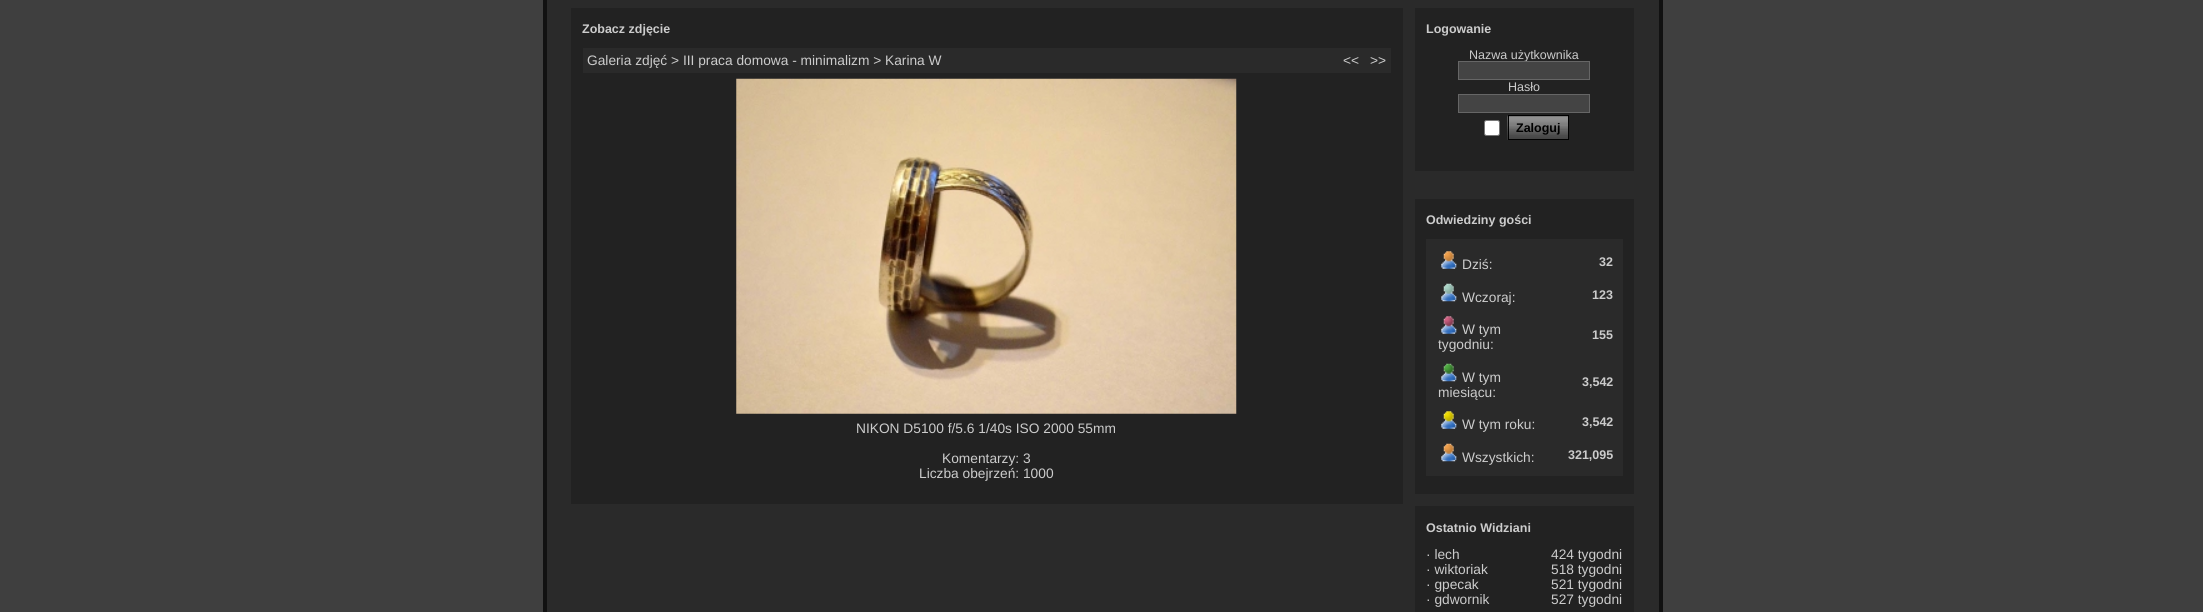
#include <cairo.h>
#include <math.h>
#include <stddef.h>

static cairo_t *ctx;

static void use_color(int r, int g, int b) {
    cairo_set_source_rgb(ctx, r / 255.0, g / 255.0, b / 255.0);
}

static void round_rect(double x, double y, double w, double h, double r) {
    cairo_new_sub_path(ctx);
    cairo_arc(ctx, x + w - r, y + h - r, r, 0, M_PI / 2);
    cairo_arc(ctx, x + r, y + h - r, r, M_PI / 2, M_PI);
    cairo_arc(ctx, x + r, y + r, r, M_PI, 1.5 * M_PI);
    cairo_arc(ctx, x + w - r, y + r, r, 1.5 * M_PI, 2 * M_PI);
    cairo_close_path(ctx);
}

static void picture(const char *path, double x, double y, double w, double h) {
    cairo_surface_t *image = cairo_image_surface_create_from_png(path);
    cairo_save(ctx);
    cairo_set_source_surface(ctx, image, x, y);
    cairo_rectangle(ctx, x, y, w, h);
    cairo_fill(ctx);
    cairo_restore(ctx);
    cairo_surface_destroy(image);
}

int main(void) {
    cairo_surface_t *surface = cairo_image_surface_create(CAIRO_FORMAT_RGB24, 2203, 612);
    ctx = cairo_create(surface);
    cairo_font_options_t *options = cairo_font_options_create();
    cairo_font_options_set_hint_metrics(options, CAIRO_HINT_METRICS_OFF);
    cairo_font_options_set_hint_style(options, CAIRO_HINT_STYLE_NONE);
    cairo_set_font_options(ctx, options);
    cairo_set_miter_limit(ctx, 4);
    use_color(63, 63, 63);
    cairo_paint(ctx);
    use_color(42, 42, 42);
    cairo_rectangle(ctx, 545, -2, 1116, 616);
    cairo_fill_preserve(ctx);
    use_color(17, 17, 17);
    cairo_set_line_width(ctx, 4);
    cairo_stroke(ctx);
    use_color(34, 34, 34);
    cairo_rectangle(ctx, 571, 8, 832, 496);
    cairo_fill(ctx);
    cairo_select_font_face(ctx, "Liberation Sans", CAIRO_FONT_SLANT_NORMAL, CAIRO_FONT_WEIGHT_BOLD);
    cairo_set_font_size(ctx, 12.5);
    use_color(204, 204, 204);
    cairo_move_to(ctx, 582, 33);
    cairo_show_text(ctx, "Zobacz zdjęcie");
    use_color(42, 42, 42);
    cairo_rectangle(ctx, 583, 48, 808, 25);
    cairo_fill(ctx);
    cairo_select_font_face(ctx, "Liberation Sans", CAIRO_FONT_SLANT_NORMAL, CAIRO_FONT_WEIGHT_NORMAL);
    cairo_set_font_size(ctx, 13.75);
    use_color(204, 204, 204);
    cairo_move_to(ctx, 587, 65);
    cairo_show_text(ctx, "Galeria zdjęć > III praca domowa - minimalizm > Karina W");
    cairo_move_to(ctx, 1343, 65);
    cairo_show_text(ctx, "<<");
    cairo_move_to(ctx, 1370, 65);
    cairo_show_text(ctx, ">>");
    picture("img1.png", 736, 78, 501, 336);
    cairo_move_to(ctx, 856, 433);
    cairo_show_text(ctx, "NIKON D5100 f/5.6 1/40s ISO 2000 55mm");
    cairo_move_to(ctx, 942, 463);
    cairo_show_text(ctx, "Komentarzy: 3");
    cairo_move_to(ctx, 919, 478);
    cairo_show_text(ctx, "Liczba obejrzeń: 1000");
    use_color(34, 34, 34);
    cairo_rectangle(ctx, 1415, 8, 219, 163);
    cairo_fill(ctx);
    cairo_select_font_face(ctx, "Liberation Sans", CAIRO_FONT_SLANT_NORMAL, CAIRO_FONT_WEIGHT_BOLD);
    cairo_set_font_size(ctx, 12.5);
    use_color(204, 204, 204);
    cairo_move_to(ctx, 1426, 33);
    cairo_show_text(ctx, "Logowanie");
    cairo_select_font_face(ctx, "Liberation Sans", CAIRO_FONT_SLANT_NORMAL, CAIRO_FONT_WEIGHT_NORMAL);
    cairo_move_to(ctx, 1469, 59);
    cairo_show_text(ctx, "Nazwa użytkownika");
    use_color(68, 68, 68);
    cairo_rectangle(ctx, 1458.5, 61.5, 131, 18);
    cairo_fill_preserve(ctx);
    use_color(102, 102, 102);
    cairo_set_line_width(ctx, 1);
    cairo_stroke(ctx);
    use_color(204, 204, 204);
    cairo_move_to(ctx, 1508, 91);
    cairo_show_text(ctx, "Hasło");
    use_color(68, 68, 68);
    cairo_rectangle(ctx, 1458.5, 94.5, 131, 18);
    cairo_fill_preserve(ctx);
    use_color(102, 102, 102);
    cairo_stroke(ctx);
    use_color(255, 255, 255);
    round_rect(1484.5, 120.5, 15, 15, 2);
    cairo_fill_preserve(ctx);
    use_color(118, 118, 118);
    cairo_stroke(ctx);
    picture("img2.png", 1507, 115, 61, 25);
    cairo_rectangle(ctx, 1508.5, 115.5, 60, 24);
    use_color(0, 0, 0);
    cairo_stroke(ctx);
    cairo_select_font_face(ctx, "Liberation Sans", CAIRO_FONT_SLANT_NORMAL, CAIRO_FONT_WEIGHT_BOLD);
    cairo_move_to(ctx, 1516, 132);
    cairo_show_text(ctx, "Zaloguj");
    use_color(34, 34, 34);
    cairo_rectangle(ctx, 1415, 199, 219, 295);
    cairo_fill(ctx);
    use_color(204, 204, 204);
    cairo_move_to(ctx, 1426, 224);
    cairo_show_text(ctx, "Odwiedziny gości");
    use_color(42, 42, 42);
    cairo_rectangle(ctx, 1426, 239, 197, 237);
    cairo_fill(ctx);
    picture("img3.png", 1441, 251, 16, 18);
    cairo_select_font_face(ctx, "Liberation Sans", CAIRO_FONT_SLANT_NORMAL, CAIRO_FONT_WEIGHT_NORMAL);
    cairo_set_font_size(ctx, 13.75);
    use_color(204, 204, 204);
    cairo_move_to(ctx, 1462, 269);
    cairo_show_text(ctx, "Dziś:");
    cairo_select_font_face(ctx, "Liberation Sans", CAIRO_FONT_SLANT_NORMAL, CAIRO_FONT_WEIGHT_BOLD);
    cairo_set_font_size(ctx, 12.5);
    cairo_move_to(ctx, 1599, 266);
    cairo_show_text(ctx, "32");
    picture("img4.png", 1441, 283, 16, 19);
    cairo_select_font_face(ctx, "Liberation Sans", CAIRO_FONT_SLANT_NORMAL, CAIRO_FONT_WEIGHT_NORMAL);
    cairo_set_font_size(ctx, 13.75);
    cairo_move_to(ctx, 1462, 302);
    cairo_show_text(ctx, "Wczoraj:");
    cairo_select_font_face(ctx, "Liberation Sans", CAIRO_FONT_SLANT_NORMAL, CAIRO_FONT_WEIGHT_BOLD);
    cairo_set_font_size(ctx, 12.5);
    cairo_move_to(ctx, 1592, 299);
    cairo_show_text(ctx, "123");
    picture("img5.png", 1441, 316, 16, 18);
    cairo_select_font_face(ctx, "Liberation Sans", CAIRO_FONT_SLANT_NORMAL, CAIRO_FONT_WEIGHT_NORMAL);
    cairo_set_font_size(ctx, 13.75);
    cairo_move_to(ctx, 1462, 334);
    cairo_show_text(ctx, "W tym");
    cairo_move_to(ctx, 1438, 349);
    cairo_show_text(ctx, "tygodniu:");
    cairo_select_font_face(ctx, "Liberation Sans", CAIRO_FONT_SLANT_NORMAL, CAIRO_FONT_WEIGHT_BOLD);
    cairo_set_font_size(ctx, 12.5);
    cairo_move_to(ctx, 1592, 339);
    cairo_show_text(ctx, "155");
    picture("img6.png", 1441, 363, 16, 19);
    cairo_select_font_face(ctx, "Liberation Sans", CAIRO_FONT_SLANT_NORMAL, CAIRO_FONT_WEIGHT_NORMAL);
    cairo_set_font_size(ctx, 13.75);
    cairo_move_to(ctx, 1462, 382);
    cairo_show_text(ctx, "W tym");
    cairo_move_to(ctx, 1438, 397);
    cairo_show_text(ctx, "miesiącu:");
    cairo_select_font_face(ctx, "Liberation Sans", CAIRO_FONT_SLANT_NORMAL, CAIRO_FONT_WEIGHT_BOLD);
    cairo_set_font_size(ctx, 12.5);
    cairo_move_to(ctx, 1582, 386);
    cairo_show_text(ctx, "3,542");
    picture("img7.png", 1441, 411, 16, 18);
    cairo_select_font_face(ctx, "Liberation Sans", CAIRO_FONT_SLANT_NORMAL, CAIRO_FONT_WEIGHT_NORMAL);
    cairo_set_font_size(ctx, 13.75);
    cairo_move_to(ctx, 1462, 429);
    cairo_show_text(ctx, "W tym roku:");
    cairo_select_font_face(ctx, "Liberation Sans", CAIRO_FONT_SLANT_NORMAL, CAIRO_FONT_WEIGHT_BOLD);
    cairo_set_font_size(ctx, 12.5);
    cairo_move_to(ctx, 1582, 426);
    cairo_show_text(ctx, "3,542");
    picture("img8.png", 1441, 443, 16, 19);
    cairo_select_font_face(ctx, "Liberation Sans", CAIRO_FONT_SLANT_NORMAL, CAIRO_FONT_WEIGHT_NORMAL);
    cairo_set_font_size(ctx, 13.75);
    cairo_move_to(ctx, 1462, 462);
    cairo_show_text(ctx, "Wszystkich:");
    cairo_select_font_face(ctx, "Liberation Sans", CAIRO_FONT_SLANT_NORMAL, CAIRO_FONT_WEIGHT_BOLD);
    cairo_set_font_size(ctx, 12.5);
    cairo_move_to(ctx, 1568, 459);
    cairo_show_text(ctx, "321,095");
    use_color(34, 34, 34);
    cairo_rectangle(ctx, 1415, 506, 219, 106);
    cairo_fill(ctx);
    use_color(204, 204, 204);
    cairo_move_to(ctx, 1426, 532);
    cairo_show_text(ctx, "Ostatnio Widziani");
    cairo_select_font_face(ctx, "Liberation Sans", CAIRO_FONT_SLANT_NORMAL, CAIRO_FONT_WEIGHT_NORMAL);
    cairo_set_font_size(ctx, 13.75);
    cairo_move_to(ctx, 1426, 559);
    cairo_show_text(ctx, "· lech");
    cairo_move_to(ctx, 1551, 559);
    cairo_show_text(ctx, "424 tygodni");
    cairo_move_to(ctx, 1426, 574);
    cairo_show_text(ctx, "· wiktoriak");
    cairo_move_to(ctx, 1551, 574);
    cairo_show_text(ctx, "518 tygodni");
    cairo_move_to(ctx, 1426, 589);
    cairo_show_text(ctx, "· gpecak");
    cairo_move_to(ctx, 1551, 589);
    cairo_show_text(ctx, "521 tygodni");
    cairo_move_to(ctx, 1426, 604);
    cairo_show_text(ctx, "· gdwornik");
    cairo_move_to(ctx, 1551, 604);
    cairo_show_text(ctx, "527 tygodni");
    cairo_surface_write_to_png(surface, "result.png");
    cairo_font_options_destroy(options);
    cairo_destroy(ctx);
    cairo_surface_destroy(surface);
    return 0;
}
